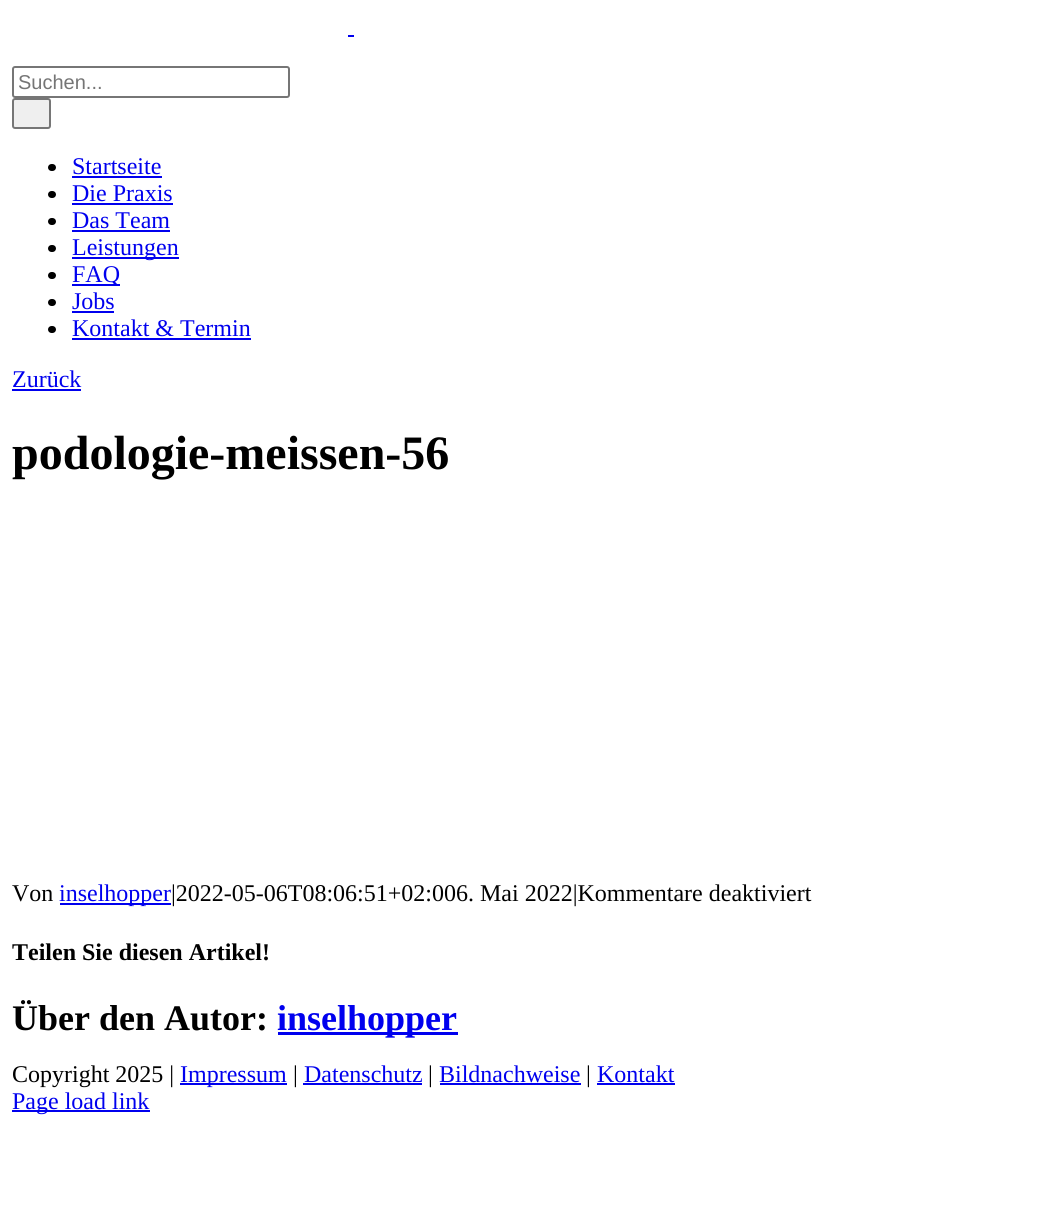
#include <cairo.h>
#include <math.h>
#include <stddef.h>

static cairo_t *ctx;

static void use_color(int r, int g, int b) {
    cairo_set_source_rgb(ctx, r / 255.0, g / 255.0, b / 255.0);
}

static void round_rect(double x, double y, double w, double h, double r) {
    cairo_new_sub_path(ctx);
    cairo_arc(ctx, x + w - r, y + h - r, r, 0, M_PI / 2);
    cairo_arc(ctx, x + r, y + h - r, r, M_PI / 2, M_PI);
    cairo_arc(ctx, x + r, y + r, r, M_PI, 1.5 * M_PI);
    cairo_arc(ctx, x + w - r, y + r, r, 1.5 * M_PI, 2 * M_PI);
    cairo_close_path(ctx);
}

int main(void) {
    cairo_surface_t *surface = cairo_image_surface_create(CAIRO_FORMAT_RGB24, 1042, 1227);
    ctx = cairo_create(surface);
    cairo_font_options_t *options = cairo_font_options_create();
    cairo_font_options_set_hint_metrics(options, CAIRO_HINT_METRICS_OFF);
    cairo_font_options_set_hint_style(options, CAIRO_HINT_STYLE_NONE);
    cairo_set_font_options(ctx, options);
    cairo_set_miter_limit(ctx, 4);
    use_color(255, 255, 255);
    cairo_paint(ctx);
    use_color(0, 0, 238);
    cairo_rectangle(ctx, 348, 35, 6, 2);
    cairo_fill(ctx);
    round_rect(13, 67, 276, 30, 2);
    use_color(118, 118, 118);
    cairo_stroke(ctx);
    cairo_select_font_face(ctx, "Liberation Sans", CAIRO_FONT_SLANT_NORMAL, CAIRO_FONT_WEIGHT_NORMAL);
    cairo_set_font_size(ctx, 20);
    use_color(117, 117, 117);
    cairo_move_to(ctx, 18, 89);
    cairo_show_text(ctx, "Suchen...");
    use_color(239, 239, 239);
    round_rect(13, 99, 37, 29, 2);
    cairo_fill_preserve(ctx);
    use_color(118, 118, 118);
    cairo_stroke(ctx);
    use_color(0, 0, 0);
    round_rect(48, 164, 8, 7, 3.5);
    cairo_fill(ctx);
    cairo_select_font_face(ctx, "Liberation Serif", CAIRO_FONT_SLANT_NORMAL, CAIRO_FONT_WEIGHT_NORMAL);
    cairo_set_font_size(ctx, 24);
    use_color(0, 0, 238);
    cairo_move_to(ctx, 72, 174);
    cairo_show_text(ctx, "Startseite");
    cairo_rectangle(ctx, 72, 176, 90, 2);
    cairo_fill(ctx);
    use_color(0, 0, 0);
    round_rect(48, 191, 8, 7, 3.5);
    cairo_fill(ctx);
    use_color(0, 0, 238);
    cairo_move_to(ctx, 72, 201);
    cairo_show_text(ctx, "Die Praxis");
    cairo_rectangle(ctx, 72, 203, 101, 2);
    cairo_fill(ctx);
    use_color(0, 0, 0);
    round_rect(48, 218, 8, 7, 3.5);
    cairo_fill(ctx);
    use_color(0, 0, 238);
    cairo_move_to(ctx, 72, 228);
    cairo_show_text(ctx, "Das Team");
    cairo_rectangle(ctx, 72, 230, 98, 2);
    cairo_fill(ctx);
    use_color(0, 0, 0);
    round_rect(48, 245, 8, 7, 3.5);
    cairo_fill(ctx);
    use_color(0, 0, 238);
    cairo_rectangle(ctx, 72, 257, 107, 2);
    cairo_fill(ctx);
    cairo_move_to(ctx, 72, 255);
    cairo_show_text(ctx, "Leistungen");
    use_color(0, 0, 0);
    round_rect(48, 272, 8, 7, 3.5);
    cairo_fill(ctx);
    use_color(0, 0, 238);
    cairo_rectangle(ctx, 72, 284, 48, 2);
    cairo_fill(ctx);
    cairo_move_to(ctx, 72, 282);
    cairo_show_text(ctx, "FAQ");
    use_color(0, 0, 0);
    round_rect(48, 299, 8, 7, 3.5);
    cairo_fill(ctx);
    use_color(0, 0, 238);
    cairo_move_to(ctx, 72, 309);
    cairo_show_text(ctx, "Jobs");
    cairo_rectangle(ctx, 72, 311, 42, 2);
    cairo_fill(ctx);
    use_color(0, 0, 0);
    round_rect(48, 326, 8, 7, 3.5);
    cairo_fill(ctx);
    use_color(0, 0, 238);
    cairo_move_to(ctx, 72, 336);
    cairo_show_text(ctx, "Kontakt & Termin");
    cairo_rectangle(ctx, 72, 338, 179, 2);
    cairo_fill(ctx);
    cairo_move_to(ctx, 12, 387);
    cairo_show_text(ctx, "Zurück");
    cairo_rectangle(ctx, 12, 389, 69, 2);
    cairo_fill(ctx);
    cairo_select_font_face(ctx, "Liberation Serif", CAIRO_FONT_SLANT_NORMAL, CAIRO_FONT_WEIGHT_BOLD);
    cairo_set_font_size(ctx, 48);
    use_color(0, 0, 0);
    cairo_move_to(ctx, 12, 469);
    cairo_show_text(ctx, "podologie-meissen-56");
    cairo_select_font_face(ctx, "Liberation Serif", CAIRO_FONT_SLANT_NORMAL, CAIRO_FONT_WEIGHT_NORMAL);
    cairo_set_font_size(ctx, 24);
    cairo_move_to(ctx, 12, 901);
    cairo_show_text(ctx, "Von");
    use_color(0, 0, 238);
    cairo_rectangle(ctx, 60, 903, 111, 2);
    cairo_fill(ctx);
    cairo_move_to(ctx, 59, 901);
    cairo_show_text(ctx, "inselhopper");
    use_color(0, 0, 0);
    cairo_move_to(ctx, 171, 901);
    cairo_show_text(ctx, "|2022-05-06T08:06:51+02:006. Mai 2022|Kommentare deaktiviert");
    cairo_select_font_face(ctx, "Liberation Serif", CAIRO_FONT_SLANT_NORMAL, CAIRO_FONT_WEIGHT_BOLD);
    cairo_move_to(ctx, 12, 960);
    cairo_show_text(ctx, "Teilen Sie diesen Artikel!");
    cairo_set_font_size(ctx, 36);
    cairo_move_to(ctx, 12, 1030);
    cairo_show_text(ctx, "Über den Autor:");
    use_color(0, 0, 238);
    cairo_rectangle(ctx, 278, 1032, 180, 3);
    cairo_fill(ctx);
    cairo_move_to(ctx, 277, 1030);
    cairo_show_text(ctx, "inselhopper");
    cairo_select_font_face(ctx, "Liberation Serif", CAIRO_FONT_SLANT_NORMAL, CAIRO_FONT_WEIGHT_NORMAL);
    cairo_set_font_size(ctx, 24);
    use_color(0, 0, 0);
    cairo_move_to(ctx, 12, 1082);
    cairo_show_text(ctx, "Copyright 2025 |");
    use_color(0, 0, 238);
    cairo_rectangle(ctx, 180, 1083, 107, 2);
    cairo_fill(ctx);
    cairo_move_to(ctx, 180, 1082);
    cairo_show_text(ctx, "Impressum");
    use_color(0, 0, 0);
    cairo_move_to(ctx, 293, 1082);
    cairo_show_text(ctx, "|");
    use_color(0, 0, 238);
    cairo_move_to(ctx, 304, 1082);
    cairo_show_text(ctx, "Datenschutz");
    cairo_rectangle(ctx, 303, 1083, 119, 2);
    cairo_fill(ctx);
    use_color(0, 0, 0);
    cairo_move_to(ctx, 428, 1082);
    cairo_show_text(ctx, "|");
    use_color(0, 0, 238);
    cairo_move_to(ctx, 439, 1082);
    cairo_show_text(ctx, "Bildnachweise");
    cairo_rectangle(ctx, 440, 1083, 141, 2);
    cairo_fill(ctx);
    use_color(0, 0, 0);
    cairo_move_to(ctx, 586, 1082);
    cairo_show_text(ctx, "|");
    use_color(0, 0, 238);
    cairo_move_to(ctx, 597, 1082);
    cairo_show_text(ctx, "Kontakt");
    cairo_rectangle(ctx, 597, 1083, 78, 2);
    cairo_fill(ctx);
    cairo_rectangle(ctx, 12, 1110, 138, 2);
    cairo_fill(ctx);
    cairo_move_to(ctx, 12, 1109);
    cairo_show_text(ctx, "Page load link");
    cairo_surface_write_to_png(surface, "result.png");
    cairo_font_options_destroy(options);
    cairo_destroy(ctx);
    cairo_surface_destroy(surface);
    return 0;
}
